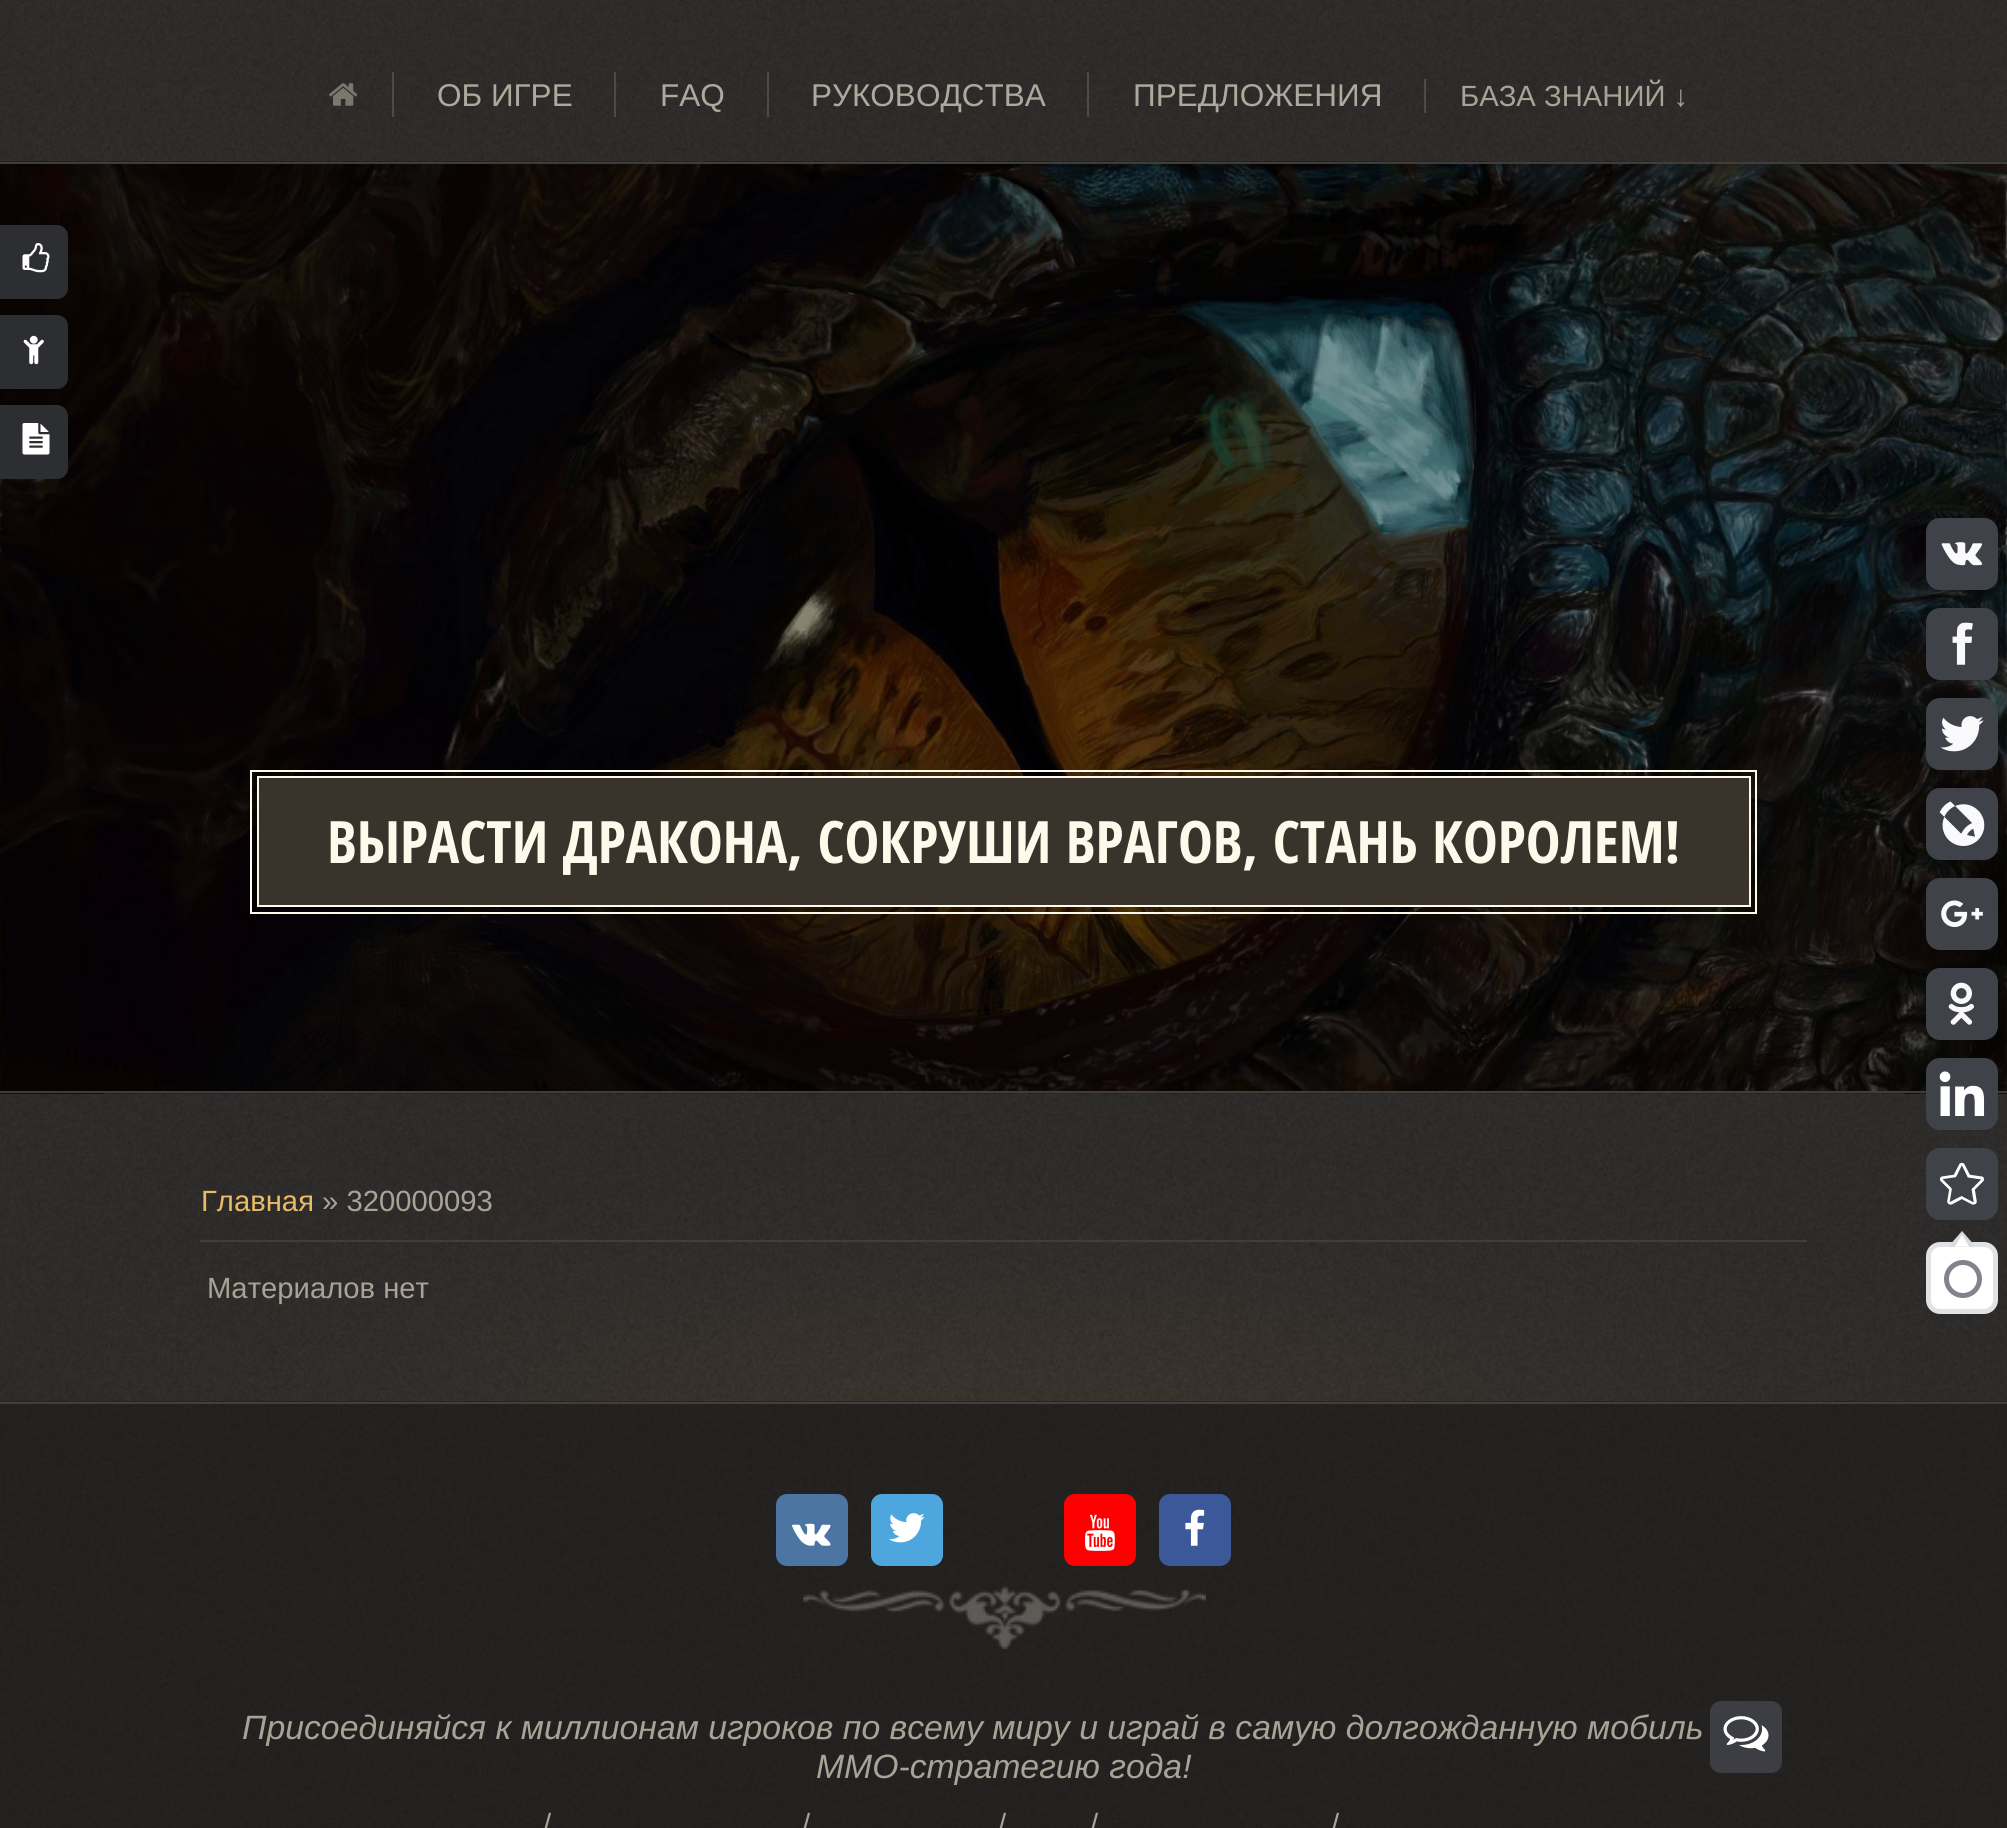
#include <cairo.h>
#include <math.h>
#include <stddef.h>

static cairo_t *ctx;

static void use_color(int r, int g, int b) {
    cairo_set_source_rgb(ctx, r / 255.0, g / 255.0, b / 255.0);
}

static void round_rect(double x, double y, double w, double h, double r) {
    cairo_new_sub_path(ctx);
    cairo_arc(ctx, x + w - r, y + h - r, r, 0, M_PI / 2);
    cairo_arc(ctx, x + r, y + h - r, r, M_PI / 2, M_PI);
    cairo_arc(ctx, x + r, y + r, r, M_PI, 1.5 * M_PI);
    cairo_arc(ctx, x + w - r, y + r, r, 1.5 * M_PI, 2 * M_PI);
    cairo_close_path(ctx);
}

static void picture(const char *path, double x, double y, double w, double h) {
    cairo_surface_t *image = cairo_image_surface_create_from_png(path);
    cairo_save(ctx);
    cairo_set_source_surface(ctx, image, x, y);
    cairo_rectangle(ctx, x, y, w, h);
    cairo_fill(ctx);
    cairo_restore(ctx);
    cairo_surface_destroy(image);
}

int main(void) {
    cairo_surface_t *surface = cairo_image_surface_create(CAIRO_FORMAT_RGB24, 2007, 1828);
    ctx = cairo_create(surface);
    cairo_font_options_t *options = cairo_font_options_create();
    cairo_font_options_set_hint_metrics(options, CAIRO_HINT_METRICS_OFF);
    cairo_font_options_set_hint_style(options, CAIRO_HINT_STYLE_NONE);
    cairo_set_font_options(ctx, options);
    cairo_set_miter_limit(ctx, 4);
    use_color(255, 255, 255);
    cairo_paint(ctx);
    picture("img1.png", 0, 0, 2007, 1402);
    picture("img2.png", 104, 0, 1799, 43);
    picture("img3.png", 329, 83, 29, 23);
    use_color(79, 74, 66);
    cairo_rectangle(ctx, 392, 72, 2, 45);
    cairo_fill(ctx);
    cairo_select_font_face(ctx, "Liberation Sans", CAIRO_FONT_SLANT_NORMAL, CAIRO_FONT_WEIGHT_NORMAL);
    cairo_set_font_size(ctx, 31.5);
    use_color(175, 169, 157);
    cairo_move_to(ctx, 437, 106);
    cairo_show_text(ctx, "ОБ ИГРЕ");
    use_color(79, 74, 66);
    cairo_rectangle(ctx, 614, 72, 2, 45);
    cairo_fill(ctx);
    use_color(175, 169, 157);
    cairo_move_to(ctx, 660, 106);
    cairo_show_text(ctx, "FAQ");
    use_color(79, 74, 66);
    cairo_rectangle(ctx, 767, 72, 2, 45);
    cairo_fill(ctx);
    use_color(175, 169, 157);
    cairo_move_to(ctx, 811, 106);
    cairo_show_text(ctx, "РУКОВОДСТВА");
    use_color(79, 74, 66);
    cairo_rectangle(ctx, 1087, 72, 2, 45);
    cairo_fill(ctx);
    use_color(175, 169, 157);
    cairo_move_to(ctx, 1133, 106);
    cairo_show_text(ctx, "ПРЕДЛОЖЕНИЯ");
    use_color(79, 74, 66);
    cairo_rectangle(ctx, 1424, 79, 2, 34);
    cairo_fill(ctx);
    cairo_set_font_size(ctx, 29.25);
    use_color(169, 163, 151);
    cairo_move_to(ctx, 1460, 106);
    cairo_show_text(ctx, "БАЗА ЗНАНИЙ ↓");
    use_color(19, 18, 18);
    cairo_rectangle(ctx, 0, 1093, 2007, 1);
    cairo_fill(ctx);
    picture("img7.png", 0, 161, 2007, 933);
    use_color(44, 46, 50);
    cairo_new_path(ctx);
    cairo_move_to(ctx, -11, 225);
    cairo_line_to(ctx, 57, 225);
    cairo_curve_to(ctx, 63, 225, 68, 230, 68, 236);
    cairo_line_to(ctx, 68, 288);
    cairo_curve_to(ctx, 68, 294, 63, 299, 57, 299);
    cairo_line_to(ctx, -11, 299);
    cairo_close_path(ctx);
    cairo_fill(ctx);
    picture("img4.png", 22, 243, 28, 30);
    cairo_new_path(ctx);
    cairo_move_to(ctx, -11, 315);
    cairo_line_to(ctx, 57, 315);
    cairo_curve_to(ctx, 63, 315, 68, 320, 68, 326);
    cairo_line_to(ctx, 68, 378);
    cairo_curve_to(ctx, 68, 384, 63, 389, 57, 389);
    cairo_line_to(ctx, -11, 389);
    cairo_close_path(ctx);
    cairo_fill(ctx);
    picture("img5.png", 23, 335, 21, 30);
    cairo_set_source_rgba(ctx, 0, 0, 0, 0.1);
    cairo_new_path(ctx);
    cairo_move_to(ctx, 0, 479);
    cairo_line_to(ctx, 0, 491);
    cairo_line_to(ctx, 68, 491);
    cairo_curve_to(ctx, 74, 491, 79, 486, 79, 480);
    cairo_line_to(ctx, 79, 427);
    cairo_curve_to(ctx, 79, 421, 74, 416, 68, 416);
    cairo_line_to(ctx, 67, 416);
    cairo_line_to(ctx, 68, 459);
    cairo_curve_to(ctx, 68, 467, 69, 477, 59, 479);
    cairo_close_path(ctx);
    cairo_fill(ctx);
    use_color(44, 46, 50);
    cairo_new_path(ctx);
    cairo_move_to(ctx, -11, 405);
    cairo_line_to(ctx, 57, 405);
    cairo_curve_to(ctx, 63, 405, 68, 410, 68, 416);
    cairo_line_to(ctx, 68, 468);
    cairo_curve_to(ctx, 68, 474, 63, 479, 57, 479);
    cairo_line_to(ctx, -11, 479);
    cairo_close_path(ctx);
    cairo_fill(ctx);
    picture("img6.png", 22, 423, 28, 32);
    use_color(64, 60, 56);
    cairo_rectangle(ctx, 0, 162, 2007, 2);
    cairo_fill(ctx);
    cairo_rectangle(ctx, 0, 1091, 2007, 2);
    cairo_fill(ctx);
    cairo_rectangle(ctx, 251, 771, 1505, 142);
    use_color(255, 249, 235);
    cairo_stroke(ctx);
    use_color(57, 51, 43);
    cairo_rectangle(ctx, 258, 777, 1492, 129);
    cairo_fill_preserve(ctx);
    use_color(255, 249, 235);
    cairo_stroke(ctx);
    cairo_select_font_face(ctx, "Open Sans Condensed", CAIRO_FONT_SLANT_NORMAL, CAIRO_FONT_WEIGHT_BOLD);
    cairo_set_font_size(ctx, 58.5);
    cairo_move_to(ctx, 327, 863);
    cairo_show_text(ctx, "ВЫРАСТИ ДРАКОНА, СОКРУШИ ВРАГОВ, СТАНЬ КОРОЛЕМ!");
    use_color(63, 66, 72);
    round_rect(1926, 518, 72, 72, 14);
    cairo_fill(ctx);
    picture("img8.png", 1941, 542, 42, 24);
    round_rect(1926, 608, 72, 72, 14);
    cairo_fill(ctx);
    picture("img9.png", 1952, 622, 21, 43);
    round_rect(1926, 698, 72, 72, 14);
    cairo_fill(ctx);
    picture("img10.png", 1940, 716, 44, 36);
    round_rect(1926, 788, 72, 72, 14);
    cairo_fill(ctx);
    picture("img11.png", 1939, 801, 46, 45);
    round_rect(1926, 878, 72, 72, 14);
    cairo_fill(ctx);
    picture("img12.png", 1941, 900, 42, 27);
    round_rect(1926, 968, 72, 72, 14);
    cairo_fill(ctx);
    picture("img13.png", 1948, 982, 26, 43);
    round_rect(1926, 1058, 72, 72, 14);
    cairo_fill(ctx);
    picture("img14.png", 1939, 1071, 46, 45);
    round_rect(1926, 1148, 72, 72, 14);
    cairo_fill(ctx);
    picture("img15.png", 1939, 1162, 46, 43);
    use_color(255, 255, 255);
    round_rect(1928.5, 1244.5, 67, 67, 11.5);
    cairo_fill_preserve(ctx);
    use_color(224, 226, 230);
    cairo_set_line_width(ctx, 5);
    cairo_stroke(ctx);
    use_color(216, 220, 222);
    cairo_new_path(ctx);
    cairo_move_to(ctx, 1975.5, 1246.5);
    cairo_line_to(ctx, 1948.5, 1246.5);
    cairo_line_to(ctx, 1962, 1231);
    cairo_close_path(ctx);
    cairo_fill(ctx);
    use_color(255, 255, 255);
    cairo_new_path(ctx);
    cairo_move_to(ctx, 1969, 1246.5);
    cairo_line_to(ctx, 1955, 1246.5);
    cairo_line_to(ctx, 1962, 1235);
    cairo_close_path(ctx);
    cairo_fill(ctx);
    cairo_arc(ctx, 1963, 1279, 16.5, 0, 2 * M_PI);
    use_color(129, 133, 139);
    cairo_stroke(ctx);
    picture("img16.png", 103, 1093, 1801, 309);
    cairo_select_font_face(ctx, "Liberation Sans", CAIRO_FONT_SLANT_NORMAL, CAIRO_FONT_WEIGHT_NORMAL);
    cairo_set_font_size(ctx, 29.25);
    use_color(235, 186, 100);
    cairo_move_to(ctx, 201, 1211);
    cairo_show_text(ctx, "Главная");
    use_color(169, 163, 151);
    cairo_move_to(ctx, 322, 1211);
    cairo_show_text(ctx, "» 320000093");
    use_color(65, 61, 57);
    cairo_rectangle(ctx, 200, 1240, 1607, 2);
    cairo_fill(ctx);
    use_color(169, 163, 151);
    cairo_move_to(ctx, 207, 1298);
    cairo_show_text(ctx, "Материалов нет");
    picture("img17.png", 0, 1401, 2007, 427);
    use_color(67, 62, 56);
    cairo_rectangle(ctx, 0, 1402, 2007, 2);
    cairo_fill(ctx);
    use_color(77, 117, 163);
    round_rect(776, 1494, 72, 72, 11);
    cairo_fill(ctx);
    picture("img18.png", 792, 1523, 39, 23);
    use_color(77, 167, 222);
    round_rect(871, 1494, 72, 72, 11);
    cairo_fill(ctx);
    picture("img19.png", 889, 1513, 36, 30);
    use_color(255, 0, 0);
    round_rect(1064, 1494, 72, 72, 11);
    cairo_fill(ctx);
    picture("img20.png", 1085, 1514, 30, 37);
    use_color(59, 89, 152);
    round_rect(1159, 1494, 72, 72, 11);
    cairo_fill(ctx);
    picture("img21.png", 1185, 1509, 20, 37);
    picture("img22.png", 803, 1586, 403, 63);
    cairo_select_font_face(ctx, "Liberation Sans", CAIRO_FONT_SLANT_ITALIC, CAIRO_FONT_WEIGHT_NORMAL);
    cairo_set_font_size(ctx, 33.75);
    use_color(169, 163, 151);
    cairo_move_to(ctx, 242, 1739);
    cairo_show_text(ctx, "Присоединяйся к миллионам игроков по всему миру и играй в самую долгожданную мобиль");
    cairo_move_to(ctx, 816, 1778);
    cairo_show_text(ctx, "ММО-стратегию года!");
    cairo_select_font_face(ctx, "Liberation Sans", CAIRO_FONT_SLANT_NORMAL, CAIRO_FONT_WEIGHT_NORMAL);
    cairo_set_font_size(ctx, 29.25);
    cairo_move_to(ctx, 543, 1834);
    cairo_show_text(ctx, "/");
    cairo_move_to(ctx, 802, 1834);
    cairo_show_text(ctx, "/");
    cairo_move_to(ctx, 998, 1834);
    cairo_show_text(ctx, "/");
    cairo_move_to(ctx, 1090, 1834);
    cairo_show_text(ctx, "/");
    cairo_move_to(ctx, 1331, 1834);
    cairo_show_text(ctx, "/");
    use_color(60, 62, 68);
    round_rect(1710, 1701, 72, 72, 11);
    cairo_fill(ctx);
    picture("img23.png", 1723, 1716, 46, 36);
    cairo_surface_write_to_png(surface, "result.png");
    cairo_font_options_destroy(options);
    cairo_destroy(ctx);
    cairo_surface_destroy(surface);
    return 0;
}
